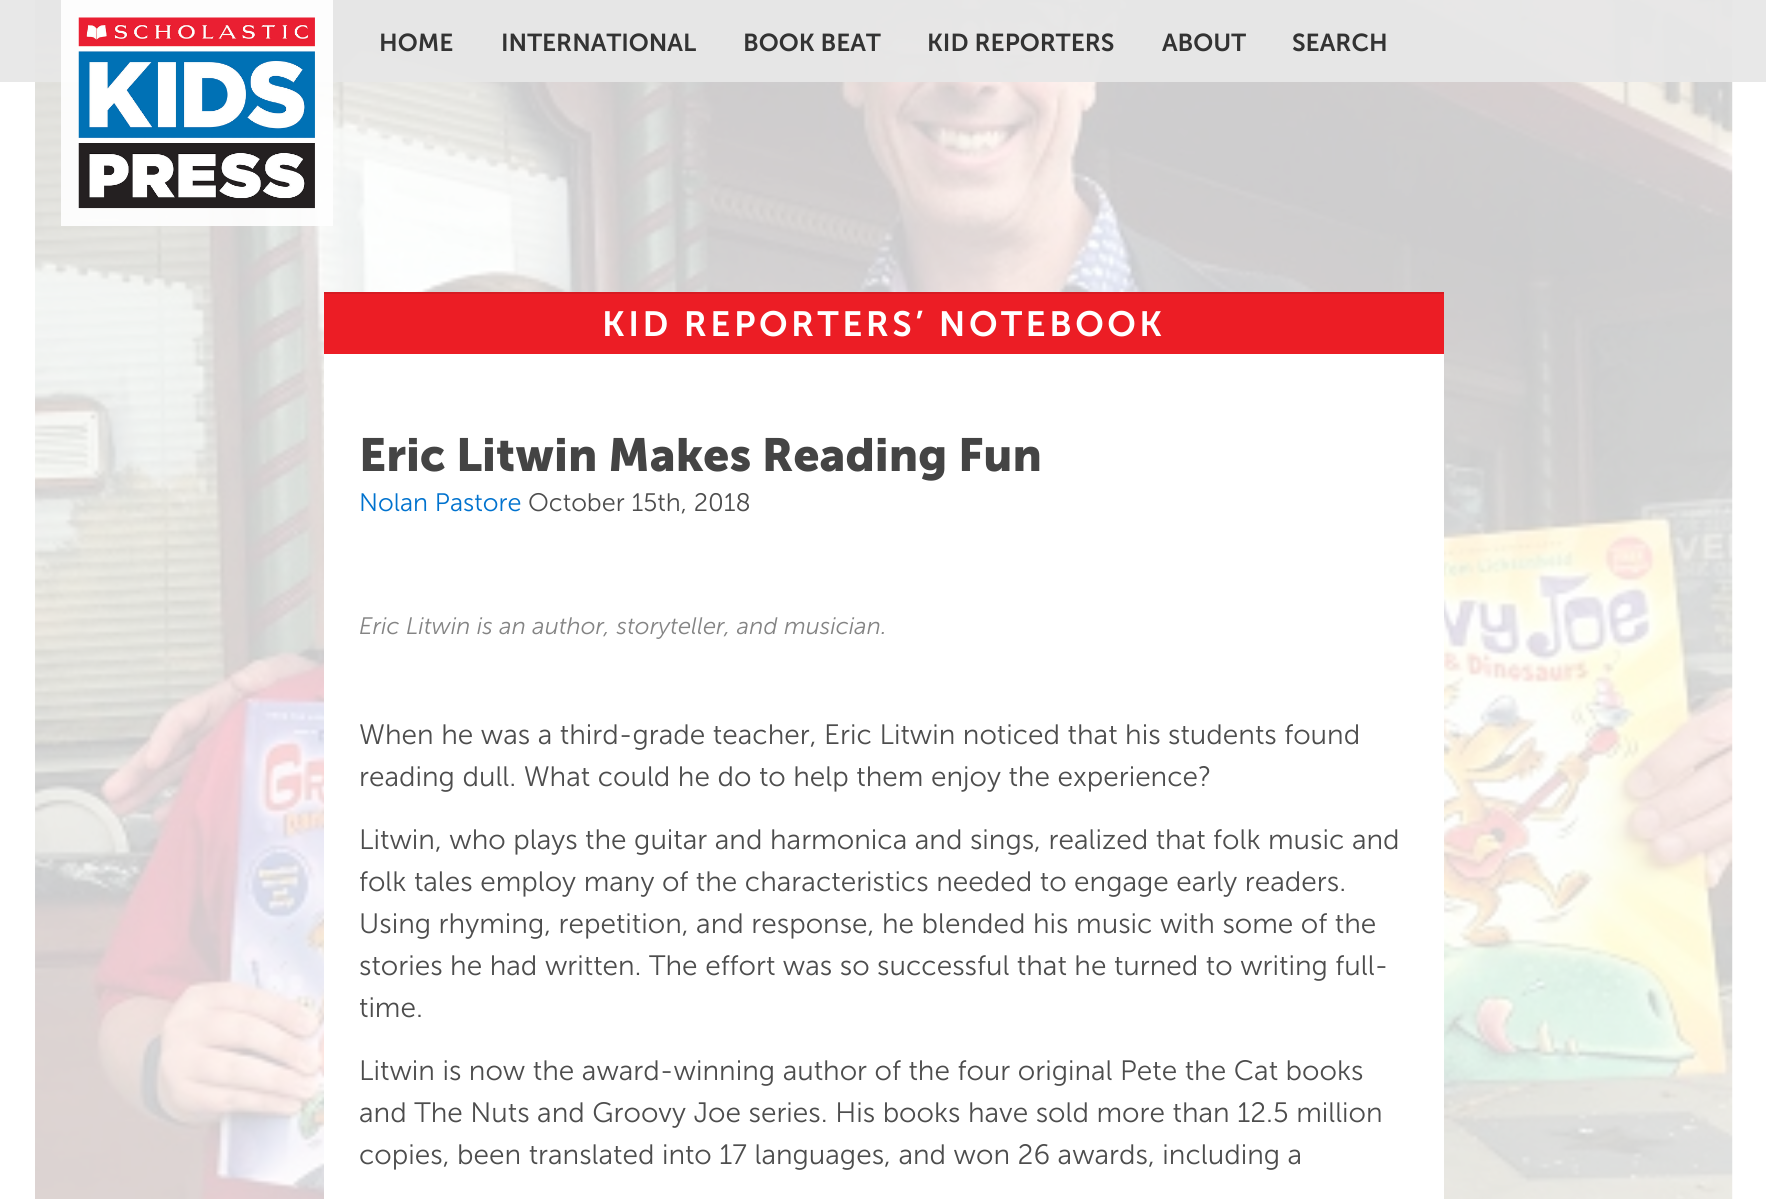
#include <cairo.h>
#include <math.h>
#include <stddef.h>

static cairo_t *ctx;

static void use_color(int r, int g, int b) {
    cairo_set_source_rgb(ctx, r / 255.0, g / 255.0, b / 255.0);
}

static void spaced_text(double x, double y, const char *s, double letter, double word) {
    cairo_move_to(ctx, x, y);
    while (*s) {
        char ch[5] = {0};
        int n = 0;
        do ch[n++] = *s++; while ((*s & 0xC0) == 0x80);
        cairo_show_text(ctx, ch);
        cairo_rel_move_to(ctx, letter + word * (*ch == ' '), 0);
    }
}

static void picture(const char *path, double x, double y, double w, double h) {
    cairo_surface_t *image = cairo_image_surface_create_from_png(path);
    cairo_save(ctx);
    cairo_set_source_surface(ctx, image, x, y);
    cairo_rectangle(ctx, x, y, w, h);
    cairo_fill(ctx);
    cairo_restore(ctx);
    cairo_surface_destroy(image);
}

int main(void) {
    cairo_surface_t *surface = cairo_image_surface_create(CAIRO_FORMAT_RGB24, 1766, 1199);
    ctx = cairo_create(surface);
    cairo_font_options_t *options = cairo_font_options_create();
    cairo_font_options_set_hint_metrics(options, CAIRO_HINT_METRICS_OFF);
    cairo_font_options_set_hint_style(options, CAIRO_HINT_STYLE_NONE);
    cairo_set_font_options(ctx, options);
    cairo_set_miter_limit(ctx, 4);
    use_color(255, 255, 255);
    cairo_paint(ctx);
    picture("img2.png", 35, 0, 1698, 1199);
    use_color(255, 255, 255);
    cairo_rectangle(ctx, 324, 354, 1120, 845);
    cairo_fill(ctx);
    cairo_set_source_rgba(ctx, 0.906, 0.906, 0.906, 0.95);
    cairo_rectangle(ctx, 0, 0, 1766, 82);
    cairo_fill(ctx);
    cairo_set_source_rgba(ctx, 1, 1, 1, 0.9);
    cairo_rectangle(ctx, 61, 0, 272, 226);
    cairo_fill(ctx);
    picture("img1.png", 78, 17, 237, 192);
    cairo_select_font_face(ctx, "Museo Sans SemiBold", CAIRO_FONT_SLANT_NORMAL, CAIRO_FONT_WEIGHT_NORMAL);
    cairo_set_font_size(ctx, 24.5);
    use_color(51, 51, 51);
    cairo_move_to(ctx, 379, 51);
    cairo_show_text(ctx, "HOME");
    cairo_move_to(ctx, 501, 51);
    cairo_show_text(ctx, "INTERNATIONAL");
    cairo_move_to(ctx, 743, 51);
    cairo_show_text(ctx, "BOOK BEAT");
    cairo_move_to(ctx, 927, 51);
    cairo_show_text(ctx, "KID REPORTERS");
    cairo_move_to(ctx, 1162, 51);
    cairo_show_text(ctx, "ABOUT");
    cairo_move_to(ctx, 1292, 51);
    cairo_show_text(ctx, "SEARCH");
    use_color(213, 28, 35);
    cairo_rectangle(ctx, 324, 292, 1120, 2);
    cairo_fill(ctx);
    use_color(236, 29, 37);
    cairo_rectangle(ctx, 324, 294, 1120, 60);
    cairo_fill(ctx);
    cairo_set_font_size(ctx, 35);
    use_color(255, 255, 255);
    spaced_text(602, 336, "KID REPORTERS’ NOTEBOOK", 3.5, 0);
    cairo_select_font_face(ctx, "Museo Sans ExtraBold", CAIRO_FONT_SLANT_NORMAL, CAIRO_FONT_WEIGHT_NORMAL);
    cairo_set_font_size(ctx, 46.25);
    use_color(68, 68, 68);
    cairo_move_to(ctx, 359, 471);
    cairo_show_text(ctx, "Eric Litwin Makes Reading Fun");
    cairo_select_font_face(ctx, "Museo Sans Light", CAIRO_FONT_SLANT_NORMAL, CAIRO_FONT_WEIGHT_NORMAL);
    cairo_set_font_size(ctx, 25.25);
    use_color(0, 114, 206);
    cairo_move_to(ctx, 359, 511);
    cairo_show_text(ctx, "Nolan Pastore");
    use_color(77, 77, 77);
    cairo_move_to(ctx, 528, 511);
    cairo_show_text(ctx, "October 15th, 2018");
    cairo_select_font_face(ctx, "Museo Sans Light", CAIRO_FONT_SLANT_ITALIC, CAIRO_FONT_WEIGHT_NORMAL);
    cairo_set_font_size(ctx, 23.8);
    use_color(132, 132, 132);
    cairo_move_to(ctx, 359, 634);
    cairo_show_text(ctx, "Eric Litwin is an author, storyteller, and musician.");
    cairo_select_font_face(ctx, "Museo Sans Light", CAIRO_FONT_SLANT_NORMAL, CAIRO_FONT_WEIGHT_NORMAL);
    cairo_set_font_size(ctx, 28);
    use_color(77, 77, 77);
    cairo_move_to(ctx, 359, 744);
    cairo_show_text(ctx, "When he was a third-grade teacher, Eric Litwin noticed that his students found");
    cairo_move_to(ctx, 359, 786);
    cairo_show_text(ctx, "reading dull. What could he do to help them enjoy the experience?");
    cairo_move_to(ctx, 359, 849);
    cairo_show_text(ctx, "Litwin, who plays the guitar and harmonica and sings, realized that folk music and");
    cairo_move_to(ctx, 359, 891);
    cairo_show_text(ctx, "folk tales employ many of the characteristics needed to engage early readers.");
    cairo_move_to(ctx, 359, 933);
    cairo_show_text(ctx, "Using rhyming, repetition, and response, he blended his music with some of the");
    cairo_move_to(ctx, 359, 975);
    cairo_show_text(ctx, "stories he had written. The effort was so successful that he turned to writing full-");
    cairo_move_to(ctx, 359, 1017);
    cairo_show_text(ctx, "time.");
    cairo_move_to(ctx, 359, 1080);
    cairo_show_text(ctx, "Litwin is now the award-winning author of the four original Pete the Cat books");
    cairo_move_to(ctx, 359, 1122);
    cairo_show_text(ctx, "and The Nuts and Groovy Joe series. His books have sold more than 12.5 million");
    cairo_move_to(ctx, 359, 1164);
    cairo_show_text(ctx, "copies, been translated into 17 languages, and won 26 awards, including a");
    cairo_surface_write_to_png(surface, "result.png");
    cairo_font_options_destroy(options);
    cairo_destroy(ctx);
    cairo_surface_destroy(surface);
    return 0;
}
